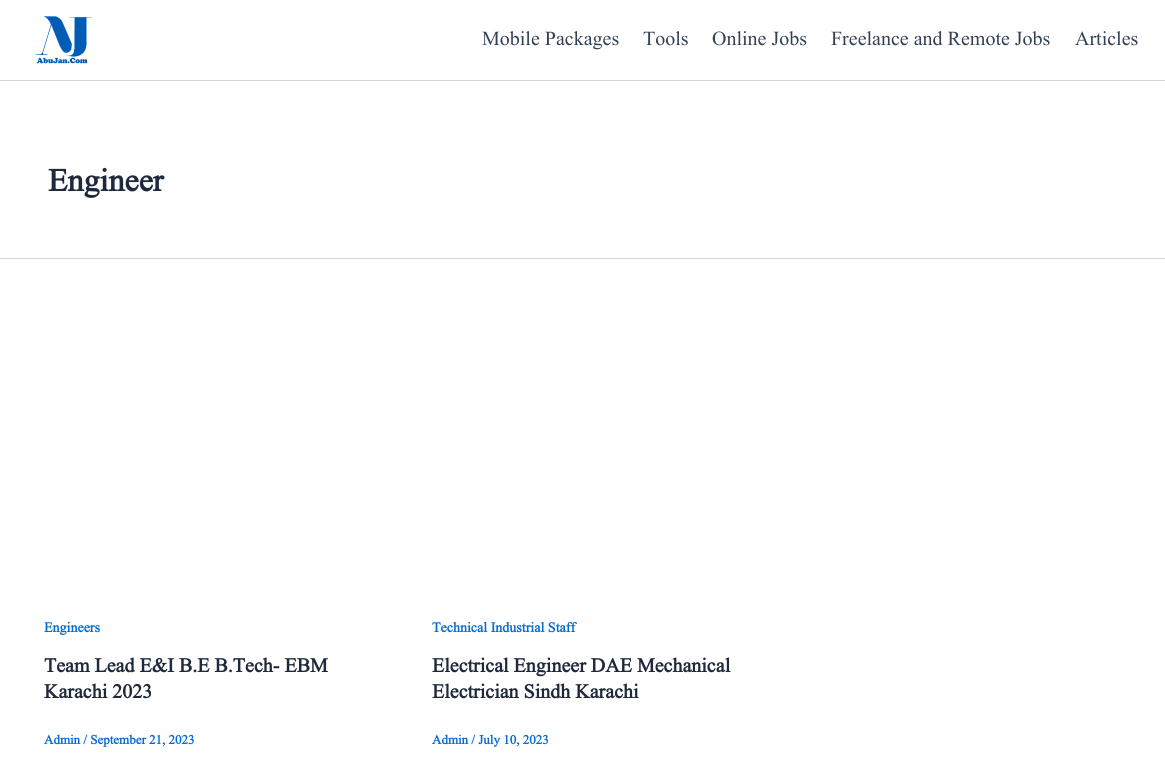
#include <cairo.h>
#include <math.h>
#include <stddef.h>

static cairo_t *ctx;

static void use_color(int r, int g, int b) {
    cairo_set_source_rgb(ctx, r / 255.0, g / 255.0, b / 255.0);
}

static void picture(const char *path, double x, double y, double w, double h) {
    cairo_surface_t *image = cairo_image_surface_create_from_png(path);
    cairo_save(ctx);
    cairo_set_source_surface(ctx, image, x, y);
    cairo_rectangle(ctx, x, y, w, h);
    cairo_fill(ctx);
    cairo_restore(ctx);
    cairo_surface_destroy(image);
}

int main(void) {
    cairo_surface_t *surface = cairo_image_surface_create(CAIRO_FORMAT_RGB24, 1165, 766);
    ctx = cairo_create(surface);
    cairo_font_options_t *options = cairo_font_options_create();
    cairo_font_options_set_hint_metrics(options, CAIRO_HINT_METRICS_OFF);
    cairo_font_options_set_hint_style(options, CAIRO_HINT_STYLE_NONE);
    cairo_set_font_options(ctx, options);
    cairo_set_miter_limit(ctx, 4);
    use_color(255, 255, 255);
    cairo_paint(ctx);
    use_color(209, 213, 219);
    cairo_rectangle(ctx, 0, 80, 1165, 1);
    cairo_fill(ctx);
    picture("img1.png", 36, 16, 56, 48);
    cairo_select_font_face(ctx, "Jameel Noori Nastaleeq", CAIRO_FONT_SLANT_NORMAL, CAIRO_FONT_WEIGHT_NORMAL);
    cairo_set_font_size(ctx, 20);
    use_color(51, 65, 85);
    cairo_move_to(ctx, 482, 45);
    cairo_show_text(ctx, "Mobile Packages");
    cairo_move_to(ctx, 643, 45);
    cairo_show_text(ctx, "Tools");
    cairo_move_to(ctx, 712, 45);
    cairo_show_text(ctx, "Online Jobs");
    cairo_move_to(ctx, 831, 45);
    cairo_show_text(ctx, "Freelance and Remote Jobs");
    cairo_move_to(ctx, 1075, 45);
    cairo_show_text(ctx, "Articles");
    use_color(209, 213, 219);
    cairo_rectangle(ctx, 0, 258, 1165, 1);
    cairo_fill(ctx);
    cairo_select_font_face(ctx, "Jameel Noori Nastaleeq", CAIRO_FONT_SLANT_NORMAL, CAIRO_FONT_WEIGHT_BOLD);
    cairo_set_font_size(ctx, 32);
    use_color(30, 41, 59);
    cairo_move_to(ctx, 48, 191);
    cairo_show_text(ctx, "Engineer");
    cairo_set_font_size(ctx, 14);
    use_color(4, 107, 210);
    cairo_move_to(ctx, 44, 632);
    cairo_show_text(ctx, "Engineers");
    cairo_set_font_size(ctx, 20);
    use_color(30, 41, 59);
    cairo_move_to(ctx, 44, 672);
    cairo_show_text(ctx, "Team Lead E&I B.E B.Tech- EBM");
    cairo_move_to(ctx, 44, 698);
    cairo_show_text(ctx, "Karachi 2023");
    cairo_set_font_size(ctx, 13);
    use_color(4, 107, 210);
    cairo_move_to(ctx, 44, 744);
    cairo_show_text(ctx, "Admin / September 21, 2023");
    cairo_set_font_size(ctx, 14);
    cairo_move_to(ctx, 432, 632);
    cairo_show_text(ctx, "Technical Industrial Staff");
    cairo_set_font_size(ctx, 20);
    use_color(30, 41, 59);
    cairo_move_to(ctx, 432, 672);
    cairo_show_text(ctx, "Electrical Engineer DAE Mechanical");
    cairo_move_to(ctx, 432, 698);
    cairo_show_text(ctx, "Electrician Sindh Karachi");
    cairo_set_font_size(ctx, 13);
    use_color(4, 107, 210);
    cairo_move_to(ctx, 432, 744);
    cairo_show_text(ctx, "Admin / July 10, 2023");
    cairo_surface_write_to_png(surface, "result.png");
    cairo_font_options_destroy(options);
    cairo_destroy(ctx);
    cairo_surface_destroy(surface);
    return 0;
}
